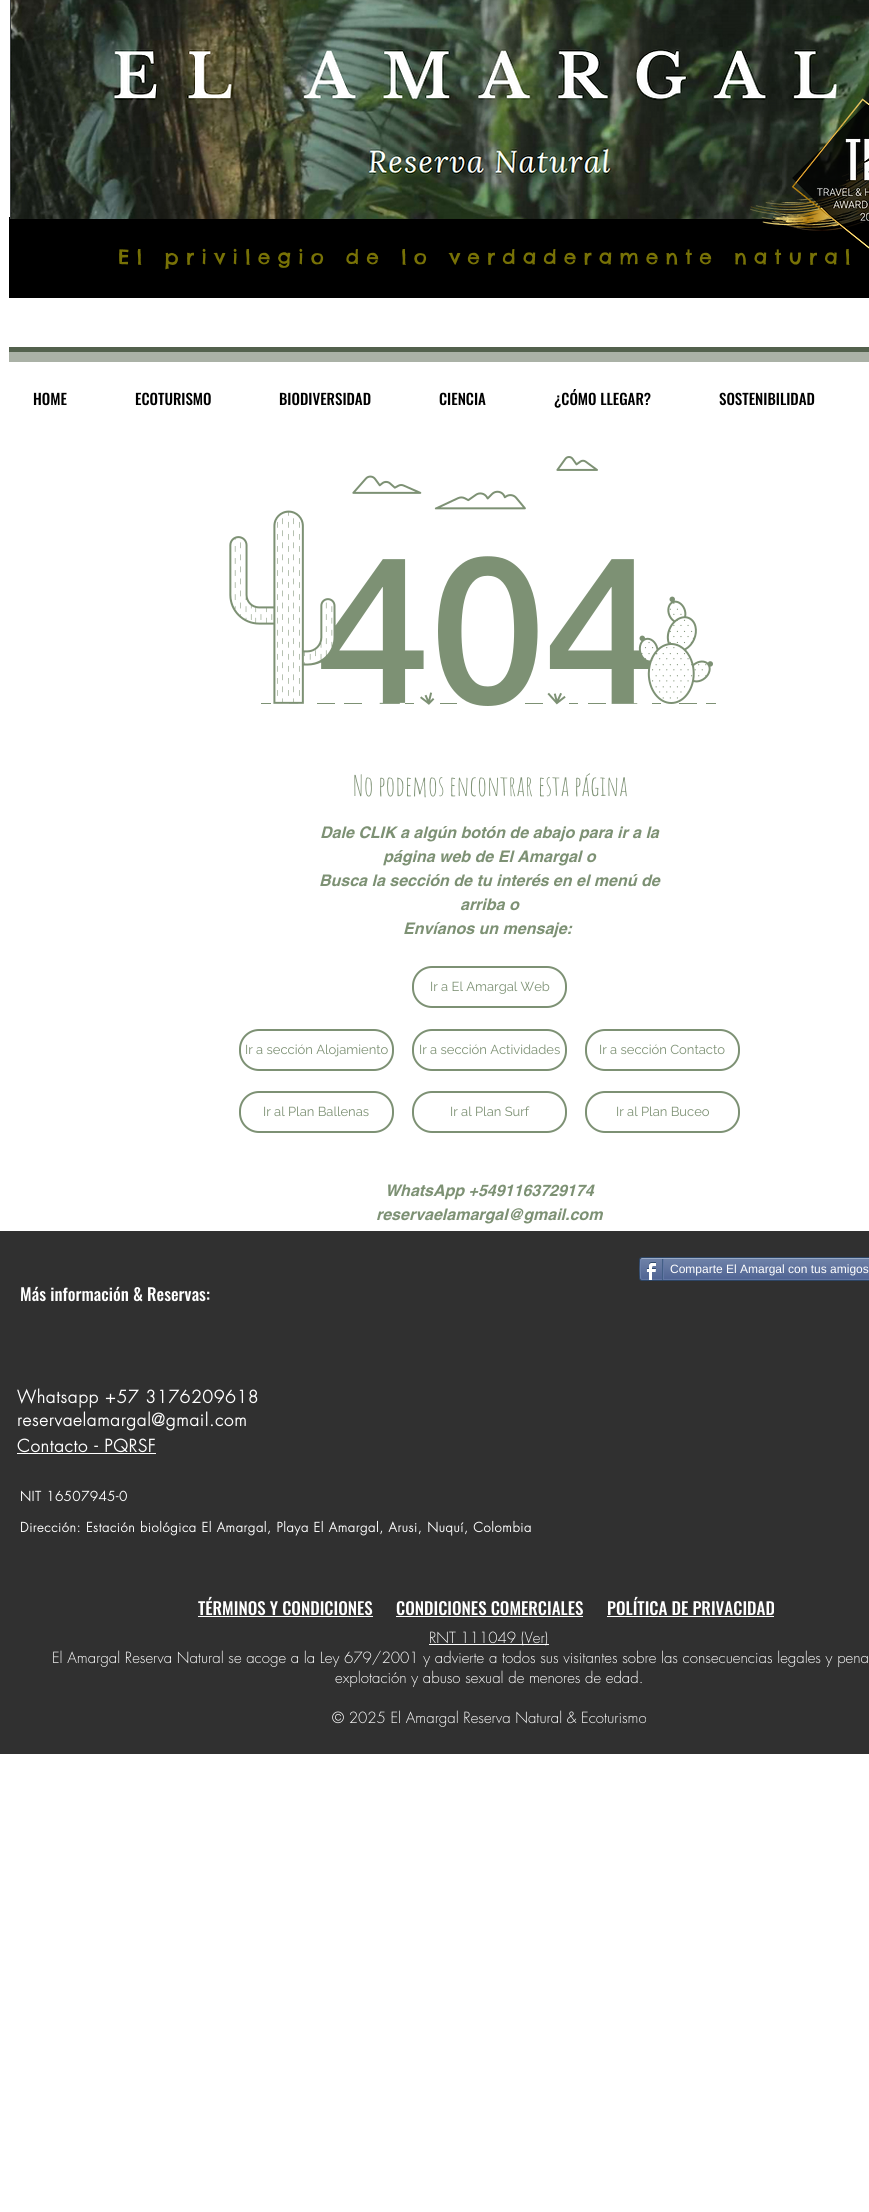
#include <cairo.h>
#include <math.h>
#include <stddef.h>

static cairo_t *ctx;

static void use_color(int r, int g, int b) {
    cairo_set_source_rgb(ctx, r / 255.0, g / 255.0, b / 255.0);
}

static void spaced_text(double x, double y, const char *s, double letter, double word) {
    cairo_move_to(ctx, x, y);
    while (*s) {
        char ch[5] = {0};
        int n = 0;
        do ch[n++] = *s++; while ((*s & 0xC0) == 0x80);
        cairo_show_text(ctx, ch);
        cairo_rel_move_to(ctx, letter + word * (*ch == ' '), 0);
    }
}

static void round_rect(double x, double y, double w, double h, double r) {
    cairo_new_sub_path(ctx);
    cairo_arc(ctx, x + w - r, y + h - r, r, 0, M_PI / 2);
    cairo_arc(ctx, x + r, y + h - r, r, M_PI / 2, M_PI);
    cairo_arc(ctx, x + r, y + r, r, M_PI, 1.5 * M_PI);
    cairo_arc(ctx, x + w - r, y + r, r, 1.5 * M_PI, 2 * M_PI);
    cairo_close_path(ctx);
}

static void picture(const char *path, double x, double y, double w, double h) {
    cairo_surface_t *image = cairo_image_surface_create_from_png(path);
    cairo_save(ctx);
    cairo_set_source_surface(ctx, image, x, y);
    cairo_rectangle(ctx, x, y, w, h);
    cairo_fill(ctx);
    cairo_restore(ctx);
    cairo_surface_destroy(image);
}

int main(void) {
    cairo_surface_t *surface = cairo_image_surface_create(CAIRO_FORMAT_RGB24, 869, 2212);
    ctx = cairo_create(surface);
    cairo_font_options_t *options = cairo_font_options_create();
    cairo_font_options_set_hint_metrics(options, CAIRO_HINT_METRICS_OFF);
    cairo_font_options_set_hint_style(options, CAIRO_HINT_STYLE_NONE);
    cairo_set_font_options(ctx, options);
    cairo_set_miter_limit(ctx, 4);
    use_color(255, 255, 255);
    cairo_paint(ctx);
    use_color(0, 0, 0);
    cairo_rectangle(ctx, 9, 217, 860, 81);
    cairo_fill(ctx);
    picture("img1.png", 10, 0, 859, 219);
    cairo_select_font_face(ctx, "Chelsea Market", CAIRO_FONT_SLANT_NORMAL, CAIRO_FONT_WEIGHT_NORMAL);
    cairo_set_font_size(ctx, 20);
    use_color(120, 114, 6);
    spaced_text(118, 264, "El privilegio de lo verdaderamente natural", 7, 0);
    picture("img2.png", 750, 98, 119, 151);
    use_color(83, 97, 77);
    cairo_rectangle(ctx, 9, 347, 860, 5);
    cairo_fill(ctx);
    use_color(170, 177, 166);
    cairo_rectangle(ctx, 9, 352, 860, 10);
    cairo_fill(ctx);
    cairo_select_font_face(ctx, "Oswald Medium", CAIRO_FONT_SLANT_NORMAL, CAIRO_FONT_WEIGHT_NORMAL);
    cairo_set_font_size(ctx, 15);
    use_color(0, 0, 0);
    cairo_move_to(ctx, 33, 405);
    cairo_show_text(ctx, "HOME");
    cairo_move_to(ctx, 135, 405);
    cairo_show_text(ctx, "ECOTURISMO");
    cairo_move_to(ctx, 279, 405);
    cairo_show_text(ctx, "BIODIVERSIDAD");
    cairo_move_to(ctx, 439, 405);
    cairo_show_text(ctx, "CIENCIA");
    cairo_move_to(ctx, 554, 405);
    cairo_show_text(ctx, "¿CÓMO LLEGAR?");
    cairo_move_to(ctx, 719, 405);
    cairo_show_text(ctx, "SOSTENIBILIDAD");
    picture("img3.png", 229, 456, 487, 250);
    cairo_select_font_face(ctx, "Amatic SC", CAIRO_FONT_SLANT_NORMAL, CAIRO_FONT_WEIGHT_NORMAL);
    cairo_set_font_size(ctx, 28);
    use_color(125, 145, 116);
    cairo_move_to(ctx, 353, 796);
    cairo_show_text(ctx, "No podemos encontrar esta página");
    cairo_select_font_face(ctx, "helvetica", CAIRO_FONT_SLANT_ITALIC, CAIRO_FONT_WEIGHT_BOLD);
    cairo_set_font_size(ctx, 16);
    cairo_move_to(ctx, 320, 838);
    cairo_show_text(ctx, "Dale CLIK a algún botón de abajo para ir a la");
    cairo_move_to(ctx, 383, 862);
    cairo_show_text(ctx, "página web de El Amargal o");
    cairo_move_to(ctx, 319, 886);
    cairo_show_text(ctx, "Busca la sección de tu interés en el menú de");
    cairo_move_to(ctx, 460, 910);
    cairo_show_text(ctx, "arriba o");
    cairo_move_to(ctx, 403, 934);
    cairo_show_text(ctx, "Envíanos un mensaje:");
    round_rect(413, 967, 153, 40, 19);
    cairo_stroke(ctx);
    cairo_select_font_face(ctx, "Raleway", CAIRO_FONT_SLANT_NORMAL, CAIRO_FONT_WEIGHT_NORMAL);
    cairo_set_font_size(ctx, 13);
    cairo_move_to(ctx, 430, 991);
    cairo_show_text(ctx, "Ir a El Amargal Web");
    round_rect(240, 1030, 153, 40, 19);
    cairo_stroke(ctx);
    cairo_move_to(ctx, 245, 1054);
    cairo_show_text(ctx, "Ir a sección Alojamiento");
    round_rect(413, 1030, 153, 40, 19);
    cairo_stroke(ctx);
    cairo_move_to(ctx, 419, 1054);
    cairo_show_text(ctx, "Ir a sección Actividades");
    round_rect(586, 1030, 153, 40, 19);
    cairo_stroke(ctx);
    cairo_move_to(ctx, 599, 1054);
    cairo_show_text(ctx, "Ir a sección Contacto");
    round_rect(240, 1092, 153, 40, 19);
    cairo_stroke(ctx);
    cairo_move_to(ctx, 263, 1116);
    cairo_show_text(ctx, "Ir al Plan Ballenas");
    round_rect(413, 1092, 153, 40, 19);
    cairo_stroke(ctx);
    cairo_move_to(ctx, 450, 1116);
    cairo_show_text(ctx, "Ir al Plan Surf");
    round_rect(586, 1092, 153, 40, 19);
    cairo_stroke(ctx);
    cairo_move_to(ctx, 616, 1116);
    cairo_show_text(ctx, "Ir al Plan Buceo");
    cairo_select_font_face(ctx, "helvetica", CAIRO_FONT_SLANT_ITALIC, CAIRO_FONT_WEIGHT_BOLD);
    cairo_set_font_size(ctx, 16);
    cairo_move_to(ctx, 385, 1196);
    cairo_show_text(ctx, "WhatsApp +5491163729174");
    cairo_move_to(ctx, 376, 1220);
    cairo_show_text(ctx, "reservaelamargal@gmail.com");
    use_color(48, 48, 48);
    cairo_rectangle(ctx, 0, 1231, 869, 523);
    cairo_fill(ctx);
    round_rect(639.5, 1257.5, 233, 23, 2.5);
    use_color(45, 69, 101);
    cairo_set_line_width(ctx, 1);
    cairo_stroke(ctx);
    picture("img4.png", 640, 1259, 229, 21);
    cairo_new_path(ctx);
    cairo_move_to(ctx, 641, 1259);
    cairo_line_to(ctx, 642, 1258.5);
    cairo_line_to(ctx, 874, 1258.5);
    cairo_line_to(ctx, 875, 1259);
    use_color(154, 171, 198);
    cairo_stroke(ctx);
    cairo_new_path(ctx);
    cairo_move_to(ctx, 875, 1279);
    cairo_line_to(ctx, 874, 1279.5);
    cairo_line_to(ctx, 642, 1279.5);
    cairo_line_to(ctx, 641, 1279);
    use_color(97, 118, 163);
    cairo_stroke(ctx);
    cairo_new_path(ctx);
    cairo_move_to(ctx, 641, 1279);
    cairo_curve_to(ctx, 640, 1278.5, 640, 1259.5, 641, 1259);
    use_color(111, 131, 173);
    cairo_stroke(ctx);
    picture("img5.png", 646, 1262, 10, 18);
    use_color(66, 94, 133);
    cairo_rectangle(ctx, 662, 1259, 1, 21);
    cairo_fill(ctx);
    cairo_select_font_face(ctx, "Liberation Sans", CAIRO_FONT_SLANT_NORMAL, CAIRO_FONT_WEIGHT_NORMAL);
    cairo_set_font_size(ctx, 12);
    use_color(255, 255, 255);
    cairo_move_to(ctx, 670, 1273);
    cairo_show_text(ctx, "Comparte El Amargal con tus amigos");
    use_color(97, 118, 163);
    cairo_rectangle(ctx, 663, 1259, 1, 20);
    cairo_fill(ctx);
    cairo_select_font_face(ctx, "Oswald Medium", CAIRO_FONT_SLANT_NORMAL, CAIRO_FONT_WEIGHT_NORMAL);
    cairo_set_font_size(ctx, 17);
    use_color(255, 255, 255);
    cairo_move_to(ctx, 20, 1301);
    cairo_show_text(ctx, "Más información & Reservas:");
    cairo_select_font_face(ctx, "futura", CAIRO_FONT_SLANT_NORMAL, CAIRO_FONT_WEIGHT_BOLD);
    spaced_text(17, 1403, "Whatsapp +57 3176209618", 0.85, 0);
    spaced_text(17, 1426, "reservaelamargal@gmail.com", 0.85, 0);
    spaced_text(17, 1452, "Contacto - PQRSF", 0.85, 0);
    cairo_rectangle(ctx, 17, 1453, 139, 1);
    cairo_fill(ctx);
    cairo_set_font_size(ctx, 13);
    spaced_text(20, 1501, "NIT 16507945-0", 0.65, 0);
    spaced_text(20, 1532, "Dirección: Estación biológica El Amargal, Playa El Amargal, Arusi, Nuquí, Colombia", 0.65, 0);
    cairo_select_font_face(ctx, "Oswald Medium", CAIRO_FONT_SLANT_NORMAL, CAIRO_FONT_WEIGHT_NORMAL);
    cairo_set_font_size(ctx, 17);
    cairo_move_to(ctx, 198, 1615);
    cairo_show_text(ctx, "TÉRMINOS Y CONDICIONES");
    cairo_rectangle(ctx, 198, 1616, 175, 1);
    cairo_fill(ctx);
    cairo_move_to(ctx, 396, 1615);
    cairo_show_text(ctx, "CONDICIONES COMERCIALES");
    cairo_rectangle(ctx, 396, 1616, 187, 1);
    cairo_fill(ctx);
    cairo_move_to(ctx, 607, 1615);
    cairo_show_text(ctx, "POLÍTICA DE PRIVACIDAD");
    cairo_rectangle(ctx, 607, 1616, 167, 1);
    cairo_fill(ctx);
    cairo_rectangle(ctx, 429, 1644, 120, 1);
    cairo_fill(ctx);
    cairo_select_font_face(ctx, "futura Light", CAIRO_FONT_SLANT_NORMAL, CAIRO_FONT_WEIGHT_NORMAL);
    cairo_set_font_size(ctx, 15);
    cairo_move_to(ctx, 429, 1643);
    cairo_show_text(ctx, "RNT 111049 (Ver)");
    cairo_move_to(ctx, 52, 1663);
    cairo_show_text(ctx, "El Amargal Reserva Natural se acoge a la Ley 679/2001 y advierte a todos sus visitantes sobre las consecuencias legales y pena");
    cairo_move_to(ctx, 335, 1683);
    cairo_show_text(ctx, "explotación y abuso sexual de menores de edad.");
    cairo_move_to(ctx, 332, 1723);
    cairo_show_text(ctx, "© 2025 El Amargal Reserva Natural & Ecoturismo");
    cairo_surface_write_to_png(surface, "result.png");
    cairo_font_options_destroy(options);
    cairo_destroy(ctx);
    cairo_surface_destroy(surface);
    return 0;
}
